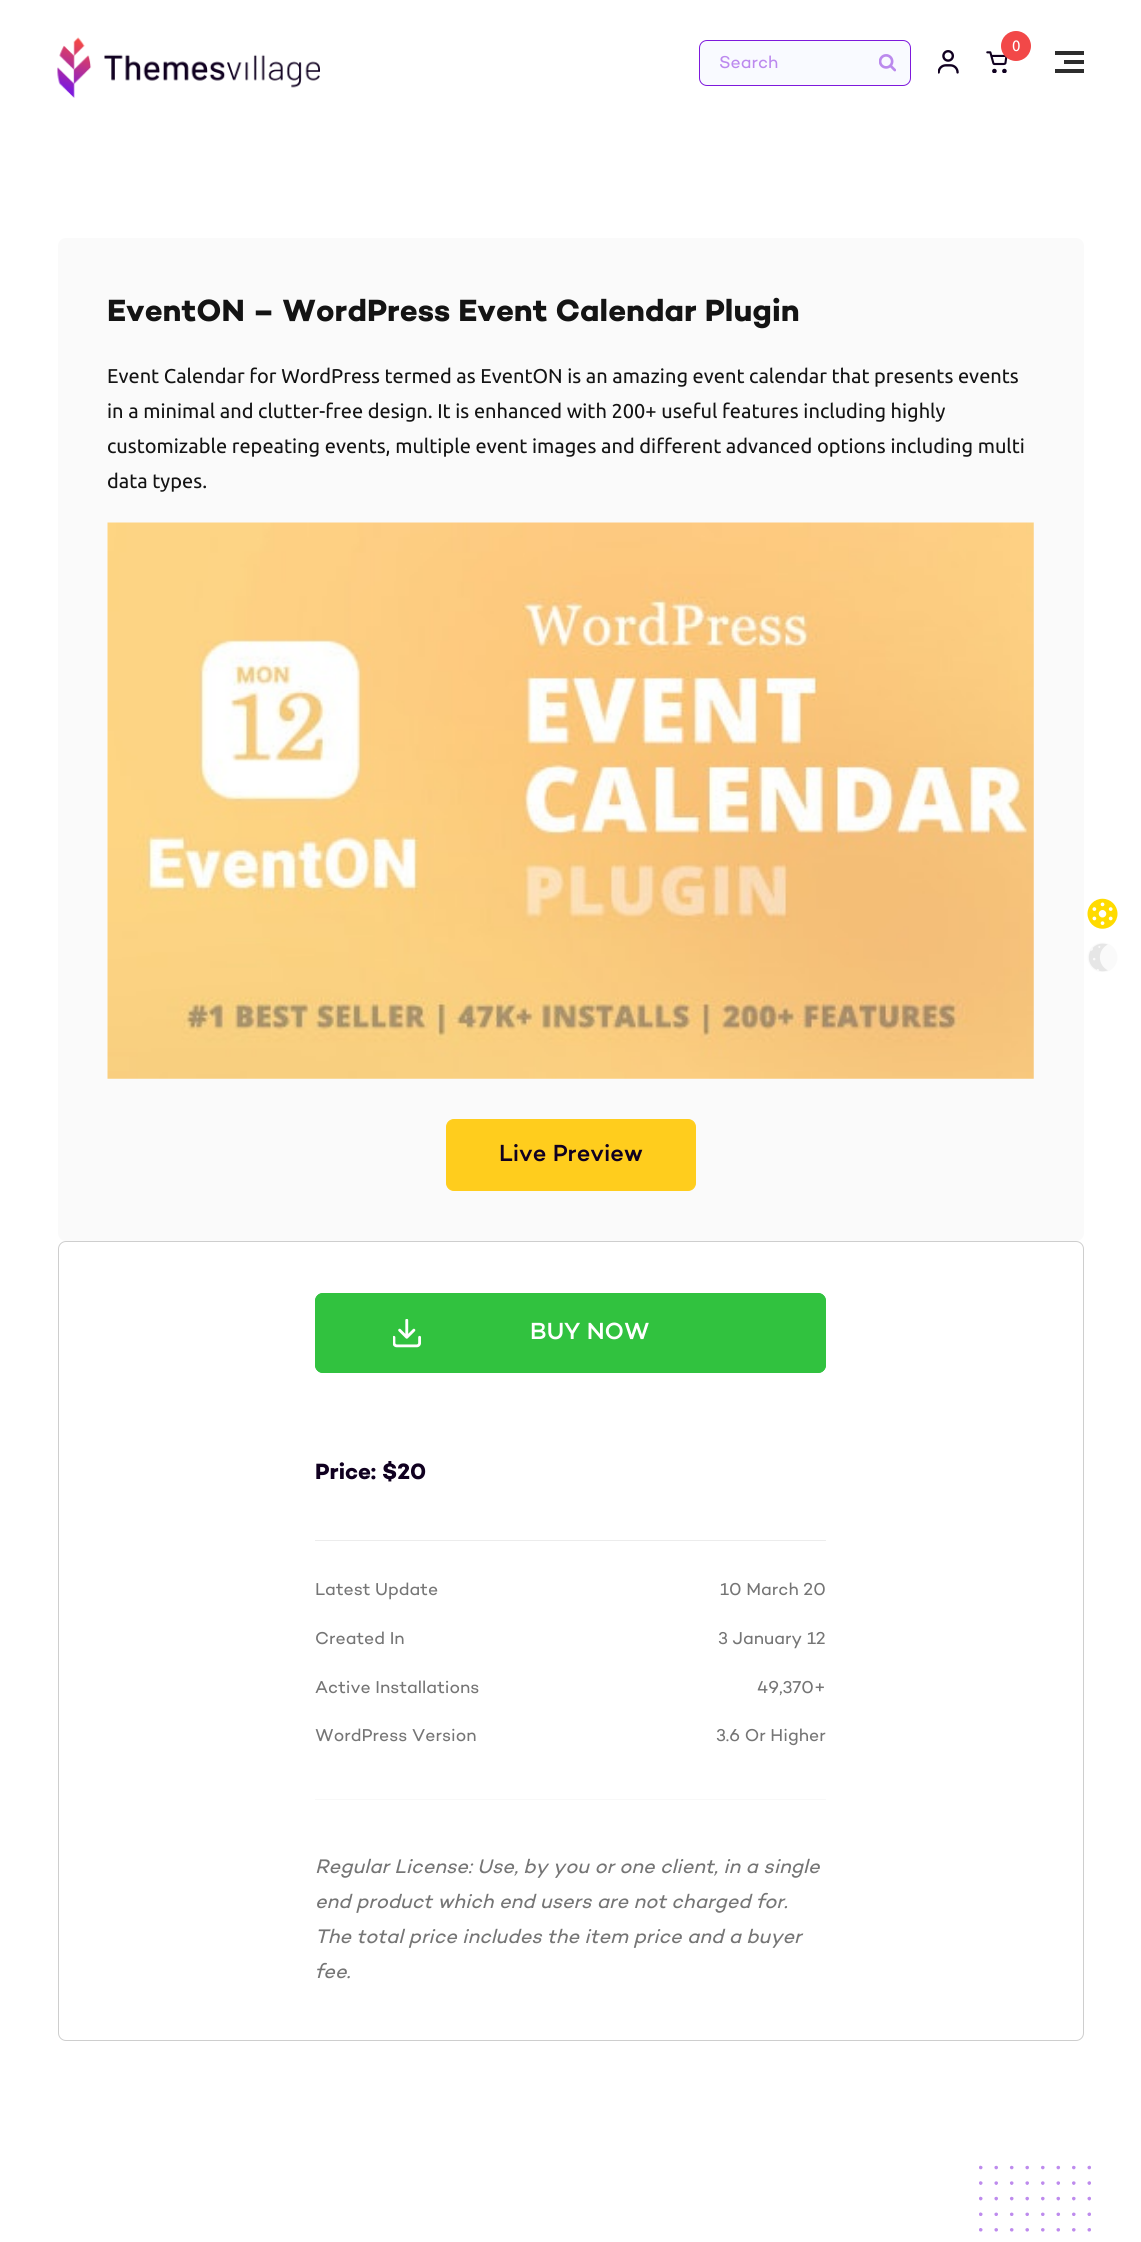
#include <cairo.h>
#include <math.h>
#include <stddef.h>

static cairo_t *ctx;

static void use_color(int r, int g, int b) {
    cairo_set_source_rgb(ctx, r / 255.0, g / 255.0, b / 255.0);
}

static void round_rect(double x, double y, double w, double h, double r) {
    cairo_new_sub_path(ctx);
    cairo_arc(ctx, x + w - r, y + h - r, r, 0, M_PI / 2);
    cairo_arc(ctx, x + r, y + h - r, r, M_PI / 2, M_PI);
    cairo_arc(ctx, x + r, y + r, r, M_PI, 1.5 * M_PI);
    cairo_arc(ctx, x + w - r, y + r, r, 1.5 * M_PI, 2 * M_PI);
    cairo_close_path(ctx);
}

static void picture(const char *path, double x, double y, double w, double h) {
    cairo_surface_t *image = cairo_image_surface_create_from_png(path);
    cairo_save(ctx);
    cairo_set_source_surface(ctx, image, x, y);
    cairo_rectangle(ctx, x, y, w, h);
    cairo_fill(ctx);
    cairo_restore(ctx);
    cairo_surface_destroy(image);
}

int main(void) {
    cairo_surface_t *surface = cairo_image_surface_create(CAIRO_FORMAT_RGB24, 1141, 2242);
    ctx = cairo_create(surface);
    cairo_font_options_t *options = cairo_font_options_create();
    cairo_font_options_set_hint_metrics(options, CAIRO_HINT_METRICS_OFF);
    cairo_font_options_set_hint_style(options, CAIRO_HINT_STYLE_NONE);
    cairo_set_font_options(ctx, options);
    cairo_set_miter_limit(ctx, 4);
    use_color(255, 255, 255);
    cairo_paint(ctx);
    picture("img1.png", 57, 37, 263, 61);
    picture("img2.png", 986, 51, 22, 22);
    use_color(242, 72, 72);
    cairo_arc(ctx, 1016, 46, 15, 0, 2 * M_PI);
    cairo_fill(ctx);
    cairo_select_font_face(ctx, "Ubuntu", CAIRO_FONT_SLANT_NORMAL, CAIRO_FONT_WEIGHT_NORMAL);
    cairo_set_font_size(ctx, 15);
    use_color(255, 255, 255);
    cairo_move_to(ctx, 1012, 51);
    cairo_show_text(ctx, "0");
    use_color(249, 250, 255);
    round_rect(699.5, 40.5, 211, 45, 7.5);
    cairo_fill_preserve(ctx);
    use_color(126, 25, 220);
    cairo_set_line_width(ctx, 1);
    cairo_stroke(ctx);
    cairo_select_font_face(ctx, "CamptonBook", CAIRO_FONT_SLANT_NORMAL, CAIRO_FONT_WEIGHT_NORMAL);
    cairo_set_font_size(ctx, 17.5);
    use_color(188, 137, 238);
    cairo_move_to(ctx, 719, 68);
    cairo_show_text(ctx, "Search");
    picture("img3.png", 879, 54, 17, 18);
    picture("img4.png", 938, 50, 21, 24);
    use_color(45, 45, 45);
    cairo_rectangle(ctx, 1055, 51, 29, 4);
    cairo_fill(ctx);
    cairo_rectangle(ctx, 1064, 60, 20, 4);
    cairo_fill(ctx);
    cairo_rectangle(ctx, 1055, 69, 29, 4);
    cairo_fill(ctx);
    use_color(250, 250, 250);
    round_rect(58, 238, 1026, 1003, 8);
    cairo_fill(ctx);
    cairo_select_font_face(ctx, "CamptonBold", CAIRO_FONT_SLANT_NORMAL, CAIRO_FONT_WEIGHT_BOLD);
    cairo_set_font_size(ctx, 31.25);
    use_color(20, 20, 20);
    cairo_move_to(ctx, 107, 321);
    cairo_show_text(ctx, "EventON – WordPress Event Calendar Plugin");
    cairo_select_font_face(ctx, "Ubuntu", CAIRO_FONT_SLANT_NORMAL, CAIRO_FONT_WEIGHT_NORMAL);
    cairo_set_font_size(ctx, 20);
    cairo_move_to(ctx, 107, 383);
    cairo_show_text(ctx, "Event Calendar for WordPress termed as EventON is an amazing event calendar that presents events");
    cairo_move_to(ctx, 107, 418);
    cairo_show_text(ctx, "in a minimal and clutter-free design. It is enhanced with 200+ useful features including highly");
    cairo_move_to(ctx, 107, 453);
    cairo_show_text(ctx, "customizable repeating events, multiple event images and different advanced options including multi");
    cairo_move_to(ctx, 107, 488);
    cairo_show_text(ctx, "data types.");
    picture("img5.png", 107, 522, 927, 557);
    use_color(255, 205, 29);
    round_rect(446.5, 1119.5, 249, 71, 7.5);
    cairo_fill_preserve(ctx);
    cairo_stroke(ctx);
    cairo_select_font_face(ctx, "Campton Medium", CAIRO_FONT_SLANT_NORMAL, CAIRO_FONT_WEIGHT_NORMAL);
    cairo_set_font_size(ctx, 23.75);
    use_color(16, 0, 32);
    cairo_move_to(ctx, 499, 1161);
    cairo_show_text(ctx, "Live Preview");
    round_rect(58.5, 1241.5, 1025, 799, 7.5);
    use_color(206, 206, 206);
    cairo_stroke(ctx);
    use_color(49, 194, 63);
    round_rect(315, 1293, 511, 80, 8);
    cairo_fill(ctx);
    picture("img6.png", 393, 1319, 28, 29);
    round_rect(315.5, 1293.5, 510, 79, 7.5);
    cairo_stroke(ctx);
    use_color(255, 255, 255);
    cairo_move_to(ctx, 530, 1339);
    cairo_show_text(ctx, "BUY NOW");
    use_color(236, 236, 236);
    cairo_rectangle(ctx, 315, 1540, 511, 1);
    cairo_fill(ctx);
    cairo_select_font_face(ctx, "CamptonBold", CAIRO_FONT_SLANT_NORMAL, CAIRO_FONT_WEIGHT_BOLD);
    cairo_set_font_size(ctx, 22.5);
    use_color(16, 0, 32);
    cairo_move_to(ctx, 315, 1479);
    cairo_show_text(ctx, "Price: $20");
    cairo_select_font_face(ctx, "CamptonBook", CAIRO_FONT_SLANT_NORMAL, CAIRO_FONT_WEIGHT_NORMAL);
    cairo_set_font_size(ctx, 17.5);
    use_color(117, 117, 117);
    cairo_move_to(ctx, 315, 1595);
    cairo_show_text(ctx, "Latest Update");
    cairo_move_to(ctx, 720, 1595);
    cairo_show_text(ctx, "10 March 20");
    cairo_move_to(ctx, 315, 1644);
    cairo_show_text(ctx, "Created In");
    cairo_move_to(ctx, 718, 1644);
    cairo_show_text(ctx, "3 January 12");
    cairo_move_to(ctx, 315, 1693);
    cairo_show_text(ctx, "Active Installations");
    cairo_move_to(ctx, 757, 1693);
    cairo_show_text(ctx, "49,370+");
    cairo_move_to(ctx, 315, 1741);
    cairo_show_text(ctx, "WordPress Version");
    cairo_move_to(ctx, 716, 1741);
    cairo_show_text(ctx, "3.6 Or Higher");
    use_color(248, 248, 248);
    cairo_rectangle(ctx, 315, 1799, 511, 1);
    cairo_fill(ctx);
    cairo_select_font_face(ctx, "CamptonBook", CAIRO_FONT_SLANT_ITALIC, CAIRO_FONT_WEIGHT_NORMAL);
    cairo_set_font_size(ctx, 20);
    use_color(117, 117, 117);
    cairo_move_to(ctx, 315, 1873);
    cairo_show_text(ctx, "Regular License: Use, by you or one client, in a single");
    cairo_move_to(ctx, 315, 1908);
    cairo_show_text(ctx, "end product which end users are not charged for.");
    cairo_move_to(ctx, 315, 1943);
    cairo_show_text(ctx, "The total price includes the item price and a buyer");
    cairo_move_to(ctx, 315, 1978);
    cairo_show_text(ctx, "fee.");
    picture("img7.png", 1087, 898, 31, 74);
    picture("img8.png", 979, 2165, 112, 67);
    cairo_surface_write_to_png(surface, "result.png");
    cairo_font_options_destroy(options);
    cairo_destroy(ctx);
    cairo_surface_destroy(surface);
    return 0;
}
